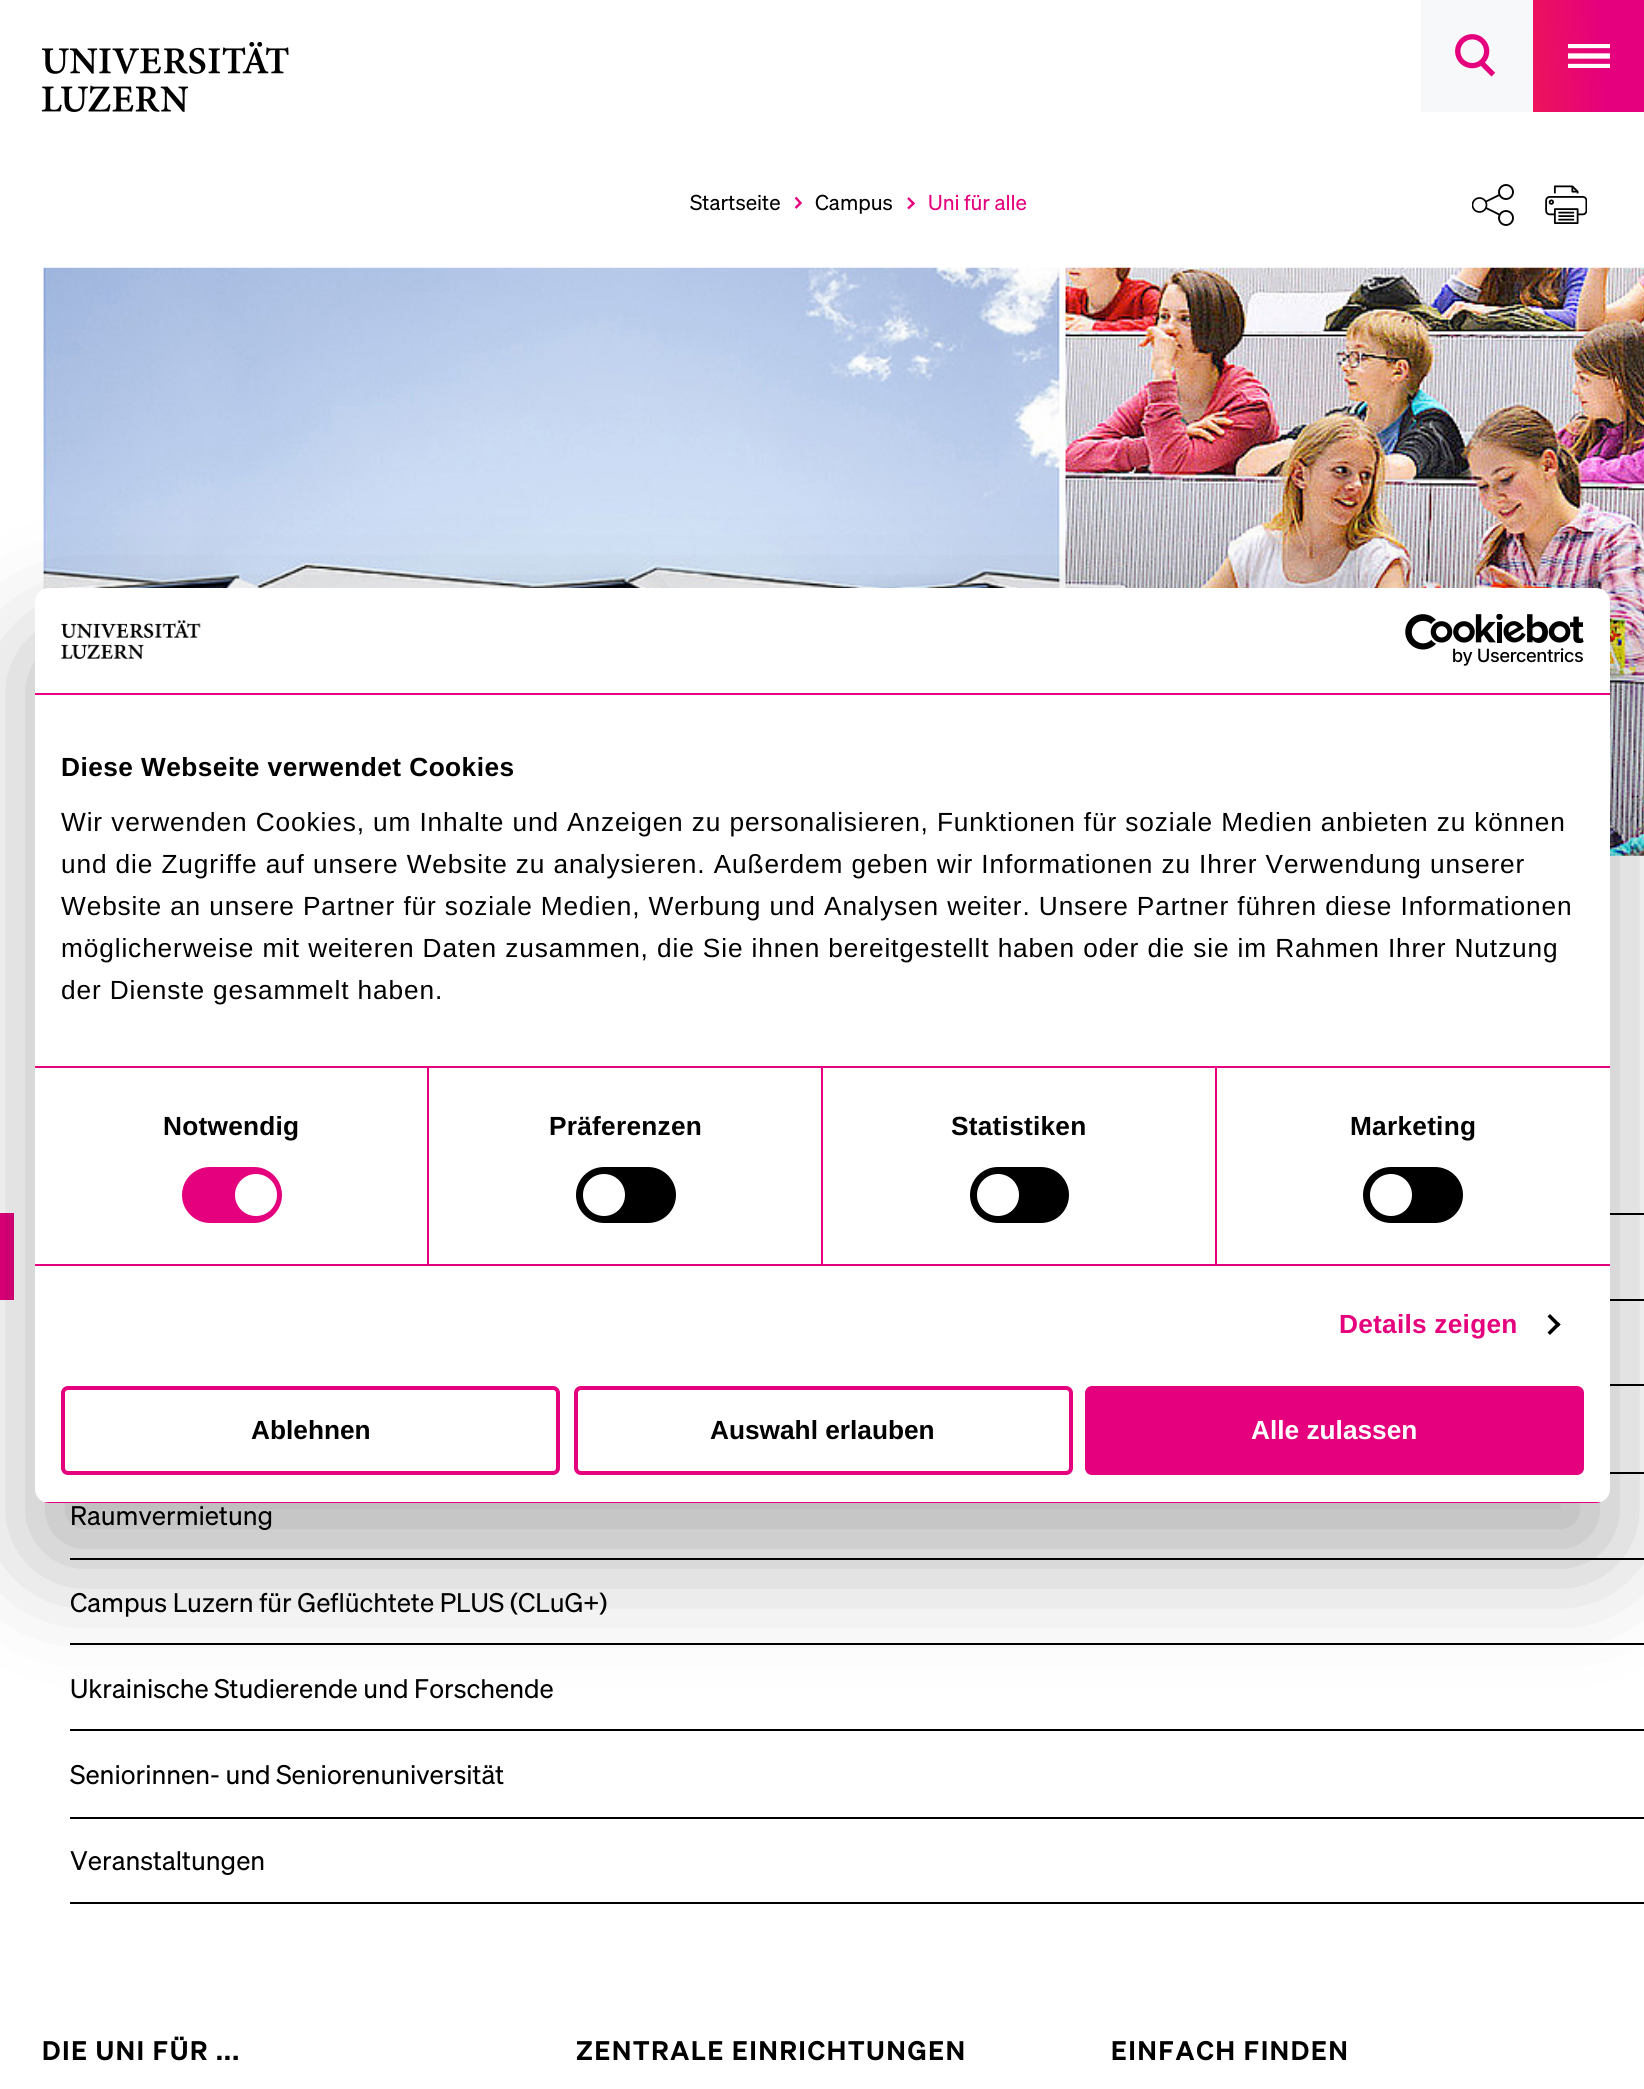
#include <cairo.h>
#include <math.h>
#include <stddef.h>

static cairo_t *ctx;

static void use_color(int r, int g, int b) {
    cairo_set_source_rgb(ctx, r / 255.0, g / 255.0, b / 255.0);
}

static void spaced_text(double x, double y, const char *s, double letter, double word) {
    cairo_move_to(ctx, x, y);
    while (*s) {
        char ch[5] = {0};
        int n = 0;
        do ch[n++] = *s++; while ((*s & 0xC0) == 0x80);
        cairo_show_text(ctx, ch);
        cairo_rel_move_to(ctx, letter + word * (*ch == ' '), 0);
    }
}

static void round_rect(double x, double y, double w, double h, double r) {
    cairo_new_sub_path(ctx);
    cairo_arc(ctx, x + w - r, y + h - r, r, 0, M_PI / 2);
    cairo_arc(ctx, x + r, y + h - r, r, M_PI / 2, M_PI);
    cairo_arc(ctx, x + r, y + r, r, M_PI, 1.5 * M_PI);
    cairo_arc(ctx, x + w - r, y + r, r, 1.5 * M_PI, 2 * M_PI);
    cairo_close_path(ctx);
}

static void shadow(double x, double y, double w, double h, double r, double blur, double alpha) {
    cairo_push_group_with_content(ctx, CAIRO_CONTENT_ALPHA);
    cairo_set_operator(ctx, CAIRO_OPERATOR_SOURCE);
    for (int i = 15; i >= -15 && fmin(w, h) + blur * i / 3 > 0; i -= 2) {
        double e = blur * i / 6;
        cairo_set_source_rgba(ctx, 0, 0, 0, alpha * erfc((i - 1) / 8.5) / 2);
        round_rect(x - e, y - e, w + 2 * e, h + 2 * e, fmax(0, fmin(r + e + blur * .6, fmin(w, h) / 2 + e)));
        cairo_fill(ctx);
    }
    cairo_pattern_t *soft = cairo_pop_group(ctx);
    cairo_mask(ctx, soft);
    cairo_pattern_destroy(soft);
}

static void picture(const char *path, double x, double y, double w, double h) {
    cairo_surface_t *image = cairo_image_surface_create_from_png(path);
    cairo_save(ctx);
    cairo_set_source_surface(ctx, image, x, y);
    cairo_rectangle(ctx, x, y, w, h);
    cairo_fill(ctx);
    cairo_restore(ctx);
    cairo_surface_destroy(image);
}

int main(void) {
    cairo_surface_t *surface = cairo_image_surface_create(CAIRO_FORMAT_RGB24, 1644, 2089);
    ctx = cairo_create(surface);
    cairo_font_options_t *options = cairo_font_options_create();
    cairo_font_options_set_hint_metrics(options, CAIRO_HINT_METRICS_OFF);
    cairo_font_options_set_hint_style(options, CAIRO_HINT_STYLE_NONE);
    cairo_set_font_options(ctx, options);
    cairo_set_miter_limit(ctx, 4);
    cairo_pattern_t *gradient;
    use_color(255, 255, 255);
    cairo_paint(ctx);
    picture("img1.png", 42, 42, 247, 70);
    use_color(247, 248, 250);
    cairo_rectangle(ctx, 1421, 0, 112, 112);
    cairo_fill(ctx);
    picture("img2.png", 1455, 34, 41, 43);
    gradient = cairo_pattern_create_linear(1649, 51, 1529, 61);
    cairo_pattern_add_color_stop_rgba(gradient, 0.37, 0.898, 0, 0.49, 1);
    cairo_pattern_add_color_stop_rgba(gradient, 1, 0.929, 0.078, 0.357, 1);
    cairo_set_source(ctx, gradient);
    cairo_pattern_destroy(gradient);
    cairo_rectangle(ctx, 1533, 0, 111, 110);
    cairo_fill(ctx);
    picture("img3.png", 1568, 44, 42, 24);
    gradient = cairo_pattern_create_linear(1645, 107, 1533, 115);
    cairo_pattern_add_color_stop_rgba(gradient, 0.37, 0.898, 0, 0.49, 1);
    cairo_pattern_add_color_stop_rgba(gradient, 1, 0.929, 0.078, 0.357, 1);
    cairo_set_source(ctx, gradient);
    cairo_pattern_destroy(gradient);
    cairo_rectangle(ctx, 1533, 110, 111, 2);
    cairo_fill(ctx);
    cairo_select_font_face(ctx, "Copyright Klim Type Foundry", CAIRO_FONT_SLANT_NORMAL, CAIRO_FONT_WEIGHT_NORMAL);
    cairo_set_font_size(ctx, 21);
    use_color(0, 0, 0);
    cairo_move_to(ctx, 690, 210);
    cairo_show_text(ctx, "Startseite");
    cairo_new_path(ctx);
    cairo_move_to(ctx, 795.5, 208);
    cairo_line_to(ctx, 800.5, 203);
    cairo_line_to(ctx, 795.5, 197.5);
    use_color(229, 0, 125);
    cairo_set_line_width(ctx, 2.4);
    cairo_stroke(ctx);
    use_color(0, 0, 0);
    cairo_move_to(ctx, 815, 210);
    cairo_show_text(ctx, "Campus");
    cairo_new_path(ctx);
    cairo_move_to(ctx, 908, 208.5);
    cairo_line_to(ctx, 913.5, 203.5);
    cairo_line_to(ctx, 908, 198);
    use_color(229, 0, 125);
    cairo_stroke(ctx);
    cairo_move_to(ctx, 928, 210);
    cairo_show_text(ctx, "Uni für alle");
    picture("img4.png", 1472, 184, 42, 42);
    picture("img5.png", 1545, 185, 42, 39);
    picture("img6.png", 42, 267, 1602, 589);
    use_color(0, 0, 0);
    cairo_rectangle(ctx, 1610, 1213, 34, 2);
    cairo_fill(ctx);
    cairo_rectangle(ctx, 1610, 1299, 34, 2);
    cairo_fill(ctx);
    use_color(229, 0, 125);
    cairo_rectangle(ctx, 0, 1213, 14, 87);
    cairo_fill(ctx);
    use_color(0, 0, 0);
    cairo_rectangle(ctx, 1610, 1384, 34, 2);
    cairo_fill(ctx);
    cairo_rectangle(ctx, 1610, 1472, 34, 2);
    cairo_fill(ctx);
    cairo_rectangle(ctx, 70, 1558, 1574, 2);
    cairo_fill(ctx);
    cairo_set_font_size(ctx, 26.25);
    cairo_move_to(ctx, 70, 1525);
    cairo_show_text(ctx, "Raumvermietung");
    cairo_rectangle(ctx, 70, 1643, 1574, 2);
    cairo_fill(ctx);
    cairo_move_to(ctx, 70, 1612);
    cairo_show_text(ctx, "Campus Luzern für Geflüchtete PLUS (CLuG+)");
    cairo_rectangle(ctx, 70, 1729, 1574, 2);
    cairo_fill(ctx);
    cairo_move_to(ctx, 70, 1698);
    cairo_show_text(ctx, "Ukrainische Studierende und Forschende");
    cairo_rectangle(ctx, 70, 1817, 1574, 2);
    cairo_fill(ctx);
    cairo_move_to(ctx, 70, 1784);
    cairo_show_text(ctx, "Seniorinnen- und Seniorenuniversität");
    cairo_rectangle(ctx, 70, 1902, 1574, 2);
    cairo_fill(ctx);
    cairo_move_to(ctx, 70, 1870);
    cairo_show_text(ctx, "Veranstaltungen");
    cairo_select_font_face(ctx, "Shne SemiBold", CAIRO_FONT_SLANT_NORMAL, CAIRO_FONT_WEIGHT_NORMAL);
    spaced_text(42, 2060, "DIE UNI FÜR ...", 1.8, 0);
    spaced_text(576, 2060, "ZENTRALE EINRICHTUNGEN", 1.8, 0);
    spaced_text(1111, 2060, "EINFACH FINDEN", 1.8, 0);
    use_color(0, 0, 0);
    shadow(35, 644, 1575, 915, 14, 59.5, 0.3);
    use_color(255, 255, 255);
    round_rect(35, 588, 1575, 915, 14);
    cairo_fill(ctx);
    use_color(229, 0, 125);
    cairo_rectangle(ctx, 35, 693, 1575, 2);
    cairo_fill(ctx);
    picture("img7.png", 61, 620, 140, 39);
    picture("img8.png", 1405, 614, 179, 52);
    cairo_rectangle(ctx, 35, 1066, 1575, 2);
    cairo_fill(ctx);
    cairo_select_font_face(ctx, "Liberation Sans", CAIRO_FONT_SLANT_NORMAL, CAIRO_FONT_WEIGHT_BOLD);
    use_color(0, 0, 0);
    spaced_text(61, 776, "Diese Webseite verwendet Cookies", 0.45, 0);
    cairo_select_font_face(ctx, "Liberation Sans", CAIRO_FONT_SLANT_NORMAL, CAIRO_FONT_WEIGHT_NORMAL);
    spaced_text(61, 831, "Wir verwenden Cookies, um Inhalte und Anzeigen zu personalisieren, Funktionen für soziale Medien anbieten zu können", 0.88, 0);
    spaced_text(61, 873, "und die Zugriffe auf unsere Website zu analysieren. Außerdem geben wir Informationen zu Ihrer Verwendung unserer", 0.88, 0);
    spaced_text(61, 915, "Website an unsere Partner für soziale Medien, Werbung und Analysen weiter. Unsere Partner führen diese Informationen", 0.88, 0);
    spaced_text(61, 957, "möglicherweise mit weiteren Daten zusammen, die Sie ihnen bereitgestellt haben oder die sie im Rahmen Ihrer Nutzung", 0.88, 0);
    spaced_text(61, 999, "der Dienste gesammelt haben.", 0.88, 0);
    use_color(229, 0, 125);
    cairo_rectangle(ctx, 35, 1264, 1575, 2);
    cairo_fill(ctx);
    cairo_rectangle(ctx, 427, 1068, 2, 196);
    cairo_fill(ctx);
    cairo_select_font_face(ctx, "Liberation Sans", CAIRO_FONT_SLANT_NORMAL, CAIRO_FONT_WEIGHT_BOLD);
    use_color(0, 0, 0);
    spaced_text(163, 1135, "Notwendig", 0.25, 0);
    use_color(229, 0, 125);
    round_rect(182, 1167, 100, 56, 28);
    cairo_fill(ctx);
    use_color(255, 255, 255);
    cairo_arc(ctx, 256, 1195, 21, 0, 2 * M_PI);
    cairo_fill(ctx);
    use_color(229, 0, 125);
    cairo_rectangle(ctx, 821, 1068, 2, 196);
    cairo_fill(ctx);
    use_color(0, 0, 0);
    spaced_text(549, 1135, "Präferenzen", 0.25, 0);
    round_rect(576, 1167, 100, 56, 28);
    cairo_fill(ctx);
    use_color(255, 255, 255);
    cairo_arc(ctx, 604, 1195, 21, 0, 2 * M_PI);
    cairo_fill(ctx);
    use_color(229, 0, 125);
    cairo_rectangle(ctx, 1215, 1068, 2, 196);
    cairo_fill(ctx);
    use_color(0, 0, 0);
    spaced_text(951, 1135, "Statistiken", 0.25, 0);
    round_rect(970, 1167, 99, 56, 28);
    cairo_fill(ctx);
    use_color(255, 255, 255);
    cairo_arc(ctx, 998, 1195, 21, 0, 2 * M_PI);
    cairo_fill(ctx);
    use_color(0, 0, 0);
    spaced_text(1350, 1135, "Marketing", 0.25, 0);
    round_rect(1363, 1167, 100, 56, 28);
    cairo_fill(ctx);
    use_color(255, 255, 255);
    cairo_arc(ctx, 1391, 1195, 21, 0, 2 * M_PI);
    cairo_fill(ctx);
    use_color(229, 0, 125);
    spaced_text(1339, 1333, "Details zeigen", 0.25, 0);
    use_color(0, 0, 0);
    cairo_new_path(ctx);
    cairo_move_to(ctx, 1550, 1314);
    cairo_line_to(ctx, 1560.5, 1324.5);
    cairo_line_to(ctx, 1558, 1327);
    cairo_line_to(ctx, 1547.5, 1316.5);
    cairo_close_path(ctx);
    cairo_fill(ctx);
    cairo_new_path(ctx);
    cairo_move_to(ctx, 1558, 1322);
    cairo_line_to(ctx, 1560.5, 1324.5);
    cairo_line_to(ctx, 1550, 1335);
    cairo_line_to(ctx, 1547.5, 1332.5);
    cairo_close_path(ctx);
    cairo_fill(ctx);
    cairo_save(ctx);
    round_rect(35, 588, 1575, 915, 14);
    cairo_clip(ctx);
    use_color(229, 0, 125);
    cairo_rectangle(ctx, 44, 1502, 1557, 1);
    cairo_fill(ctx);
    cairo_restore(ctx);
    round_rect(63, 1388, 495, 85, 5);
    use_color(229, 0, 125);
    cairo_set_line_width(ctx, 4);
    cairo_stroke(ctx);
    use_color(0, 0, 0);
    cairo_move_to(ctx, 251, 1439);
    cairo_show_text(ctx, "Ablehnen");
    round_rect(576, 1388, 495, 85, 5);
    use_color(229, 0, 125);
    cairo_stroke(ctx);
    use_color(0, 0, 0);
    cairo_move_to(ctx, 710, 1439);
    cairo_show_text(ctx, "Auswahl erlauben");
    use_color(229, 0, 125);
    round_rect(1087, 1388, 495, 85, 5);
    cairo_fill_preserve(ctx);
    cairo_stroke(ctx);
    use_color(255, 255, 255);
    cairo_move_to(ctx, 1251, 1439);
    cairo_show_text(ctx, "Alle zulassen");
    cairo_surface_write_to_png(surface, "result.png");
    cairo_font_options_destroy(options);
    cairo_destroy(ctx);
    cairo_surface_destroy(surface);
    return 0;
}
